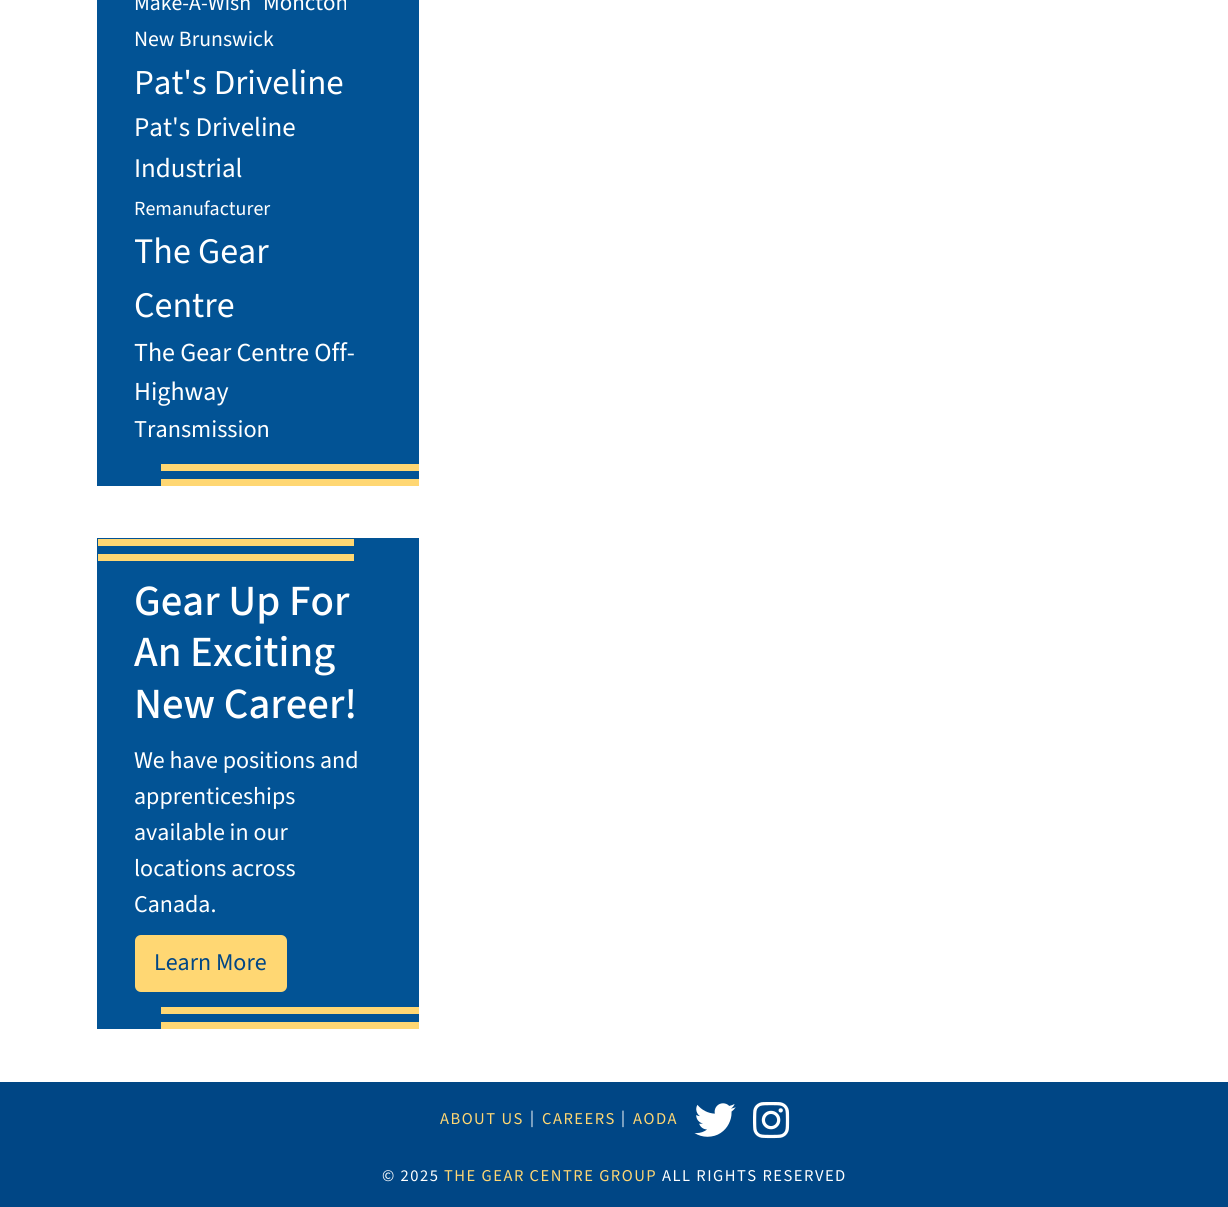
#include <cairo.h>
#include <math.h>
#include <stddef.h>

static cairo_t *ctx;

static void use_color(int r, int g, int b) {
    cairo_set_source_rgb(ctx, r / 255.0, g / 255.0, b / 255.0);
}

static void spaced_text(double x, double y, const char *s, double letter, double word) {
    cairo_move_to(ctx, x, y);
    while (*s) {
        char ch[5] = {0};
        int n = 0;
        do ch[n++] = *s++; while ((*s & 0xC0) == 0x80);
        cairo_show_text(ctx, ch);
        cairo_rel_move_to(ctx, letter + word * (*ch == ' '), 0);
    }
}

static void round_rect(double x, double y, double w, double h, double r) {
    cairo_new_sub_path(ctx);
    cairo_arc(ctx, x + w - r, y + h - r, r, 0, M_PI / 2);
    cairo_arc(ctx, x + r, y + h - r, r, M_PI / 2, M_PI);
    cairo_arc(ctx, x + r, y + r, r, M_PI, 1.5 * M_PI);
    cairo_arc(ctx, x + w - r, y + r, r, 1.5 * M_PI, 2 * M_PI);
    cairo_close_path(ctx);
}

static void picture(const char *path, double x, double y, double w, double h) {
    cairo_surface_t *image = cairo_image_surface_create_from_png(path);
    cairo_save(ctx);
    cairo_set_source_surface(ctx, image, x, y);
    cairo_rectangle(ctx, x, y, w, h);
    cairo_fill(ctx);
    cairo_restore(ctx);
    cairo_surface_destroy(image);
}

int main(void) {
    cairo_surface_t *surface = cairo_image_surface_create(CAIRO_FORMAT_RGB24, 1228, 1207);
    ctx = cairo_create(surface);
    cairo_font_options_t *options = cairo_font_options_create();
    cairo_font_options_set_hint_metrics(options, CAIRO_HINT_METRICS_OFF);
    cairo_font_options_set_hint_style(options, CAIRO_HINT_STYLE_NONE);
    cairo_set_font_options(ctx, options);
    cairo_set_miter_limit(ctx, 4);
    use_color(255, 255, 255);
    cairo_paint(ctx);
    use_color(2, 83, 149);
    cairo_rectangle(ctx, 97, 0, 322, 486);
    cairo_fill(ctx);
    cairo_select_font_face(ctx, "Source Sans 3", CAIRO_FONT_SLANT_NORMAL, CAIRO_FONT_WEIGHT_NORMAL);
    cairo_set_font_size(ctx, 21.75);
    use_color(255, 255, 255);
    cairo_move_to(ctx, 134, 10);
    cairo_show_text(ctx, "Make-A-Wish");
    cairo_set_font_size(ctx, 23);
    cairo_move_to(ctx, 263, 10);
    cairo_show_text(ctx, "Moncton");
    cairo_set_font_size(ctx, 21.75);
    cairo_move_to(ctx, 134, 46);
    cairo_show_text(ctx, "New Brunswick");
    cairo_set_font_size(ctx, 35);
    cairo_move_to(ctx, 134, 94);
    cairo_show_text(ctx, "Pat's Driveline");
    cairo_set_font_size(ctx, 27);
    cairo_move_to(ctx, 134, 136);
    cairo_show_text(ctx, "Pat's Driveline");
    cairo_move_to(ctx, 134, 177);
    cairo_show_text(ctx, "Industrial");
    cairo_set_font_size(ctx, 20);
    cairo_move_to(ctx, 134, 215);
    cairo_show_text(ctx, "Remanufacturer");
    cairo_set_font_size(ctx, 36);
    cairo_move_to(ctx, 134, 263);
    cairo_show_text(ctx, "The Gear");
    cairo_move_to(ctx, 134, 317);
    cairo_show_text(ctx, "Centre");
    cairo_set_font_size(ctx, 26);
    cairo_move_to(ctx, 134, 361);
    cairo_show_text(ctx, "The Gear Centre Off-");
    cairo_move_to(ctx, 134, 400);
    cairo_show_text(ctx, "Highway");
    cairo_set_font_size(ctx, 24.25);
    cairo_move_to(ctx, 134, 437);
    cairo_show_text(ctx, "Transmission");
    use_color(255, 215, 115);
    cairo_rectangle(ctx, 161, 464, 258, 7);
    cairo_fill(ctx);
    cairo_rectangle(ctx, 161, 479, 258, 7);
    cairo_fill(ctx);
    use_color(2, 83, 149);
    cairo_rectangle(ctx, 97, 538, 322, 491);
    cairo_fill(ctx);
    use_color(255, 215, 115);
    cairo_rectangle(ctx, 98, 539, 256, 7);
    cairo_fill(ctx);
    cairo_rectangle(ctx, 98, 554, 256, 7);
    cairo_fill(ctx);
    cairo_select_font_face(ctx, "Source Sans 3 Medium", CAIRO_FONT_SLANT_NORMAL, CAIRO_FONT_WEIGHT_NORMAL);
    cairo_set_font_size(ctx, 43);
    use_color(255, 255, 255);
    cairo_move_to(ctx, 134, 615);
    cairo_show_text(ctx, "Gear Up For");
    cairo_move_to(ctx, 134, 666);
    cairo_show_text(ctx, "An Exciting");
    cairo_move_to(ctx, 134, 718);
    cairo_show_text(ctx, "New Career!");
    cairo_select_font_face(ctx, "Source Sans 3", CAIRO_FONT_SLANT_NORMAL, CAIRO_FONT_WEIGHT_NORMAL);
    cairo_set_font_size(ctx, 24);
    cairo_move_to(ctx, 134, 768);
    cairo_show_text(ctx, "We have positions and");
    cairo_move_to(ctx, 134, 804);
    cairo_show_text(ctx, "apprenticeships");
    cairo_move_to(ctx, 134, 840);
    cairo_show_text(ctx, "available in our");
    cairo_move_to(ctx, 134, 876);
    cairo_show_text(ctx, "locations across");
    cairo_move_to(ctx, 134, 912);
    cairo_show_text(ctx, "Canada.");
    use_color(255, 215, 115);
    round_rect(136, 936, 150, 55, 5);
    cairo_fill_preserve(ctx);
    cairo_stroke(ctx);
    use_color(0, 70, 133);
    cairo_move_to(ctx, 154, 970);
    cairo_show_text(ctx, "Learn More");
    use_color(255, 215, 115);
    cairo_rectangle(ctx, 161, 1007, 258, 7);
    cairo_fill(ctx);
    cairo_rectangle(ctx, 161, 1022, 258, 7);
    cairo_fill(ctx);
    use_color(0, 70, 133);
    cairo_rectangle(ctx, 0, 1082, 1228, 125);
    cairo_fill(ctx);
    cairo_set_font_size(ctx, 16.5);
    use_color(255, 215, 115);
    spaced_text(440, 1124, "ABOUT US", 1.5, 0);
    use_color(255, 255, 255);
    spaced_text(530, 1123, "|", 1.5, 0);
    use_color(255, 215, 115);
    spaced_text(542, 1124, "CAREERS", 1.5, 0);
    use_color(255, 255, 255);
    spaced_text(621, 1123, "|", 1.5, 0);
    use_color(255, 215, 115);
    spaced_text(633, 1124, "AODA", 1.5, 0);
    picture("img1.png", 694, 1103, 42, 34);
    picture("img2.png", 753, 1102, 37, 37);
    use_color(255, 255, 255);
    spaced_text(382, 1181, "© 2025", 1.5, 0);
    use_color(255, 215, 115);
    spaced_text(444, 1181, "THE GEAR CENTRE GROUP", 1.5, 0);
    use_color(255, 255, 255);
    spaced_text(662, 1181, "ALL RIGHTS RESERVED", 1.5, 0);
    cairo_surface_write_to_png(surface, "result.png");
    cairo_font_options_destroy(options);
    cairo_destroy(ctx);
    cairo_surface_destroy(surface);
    return 0;
}
